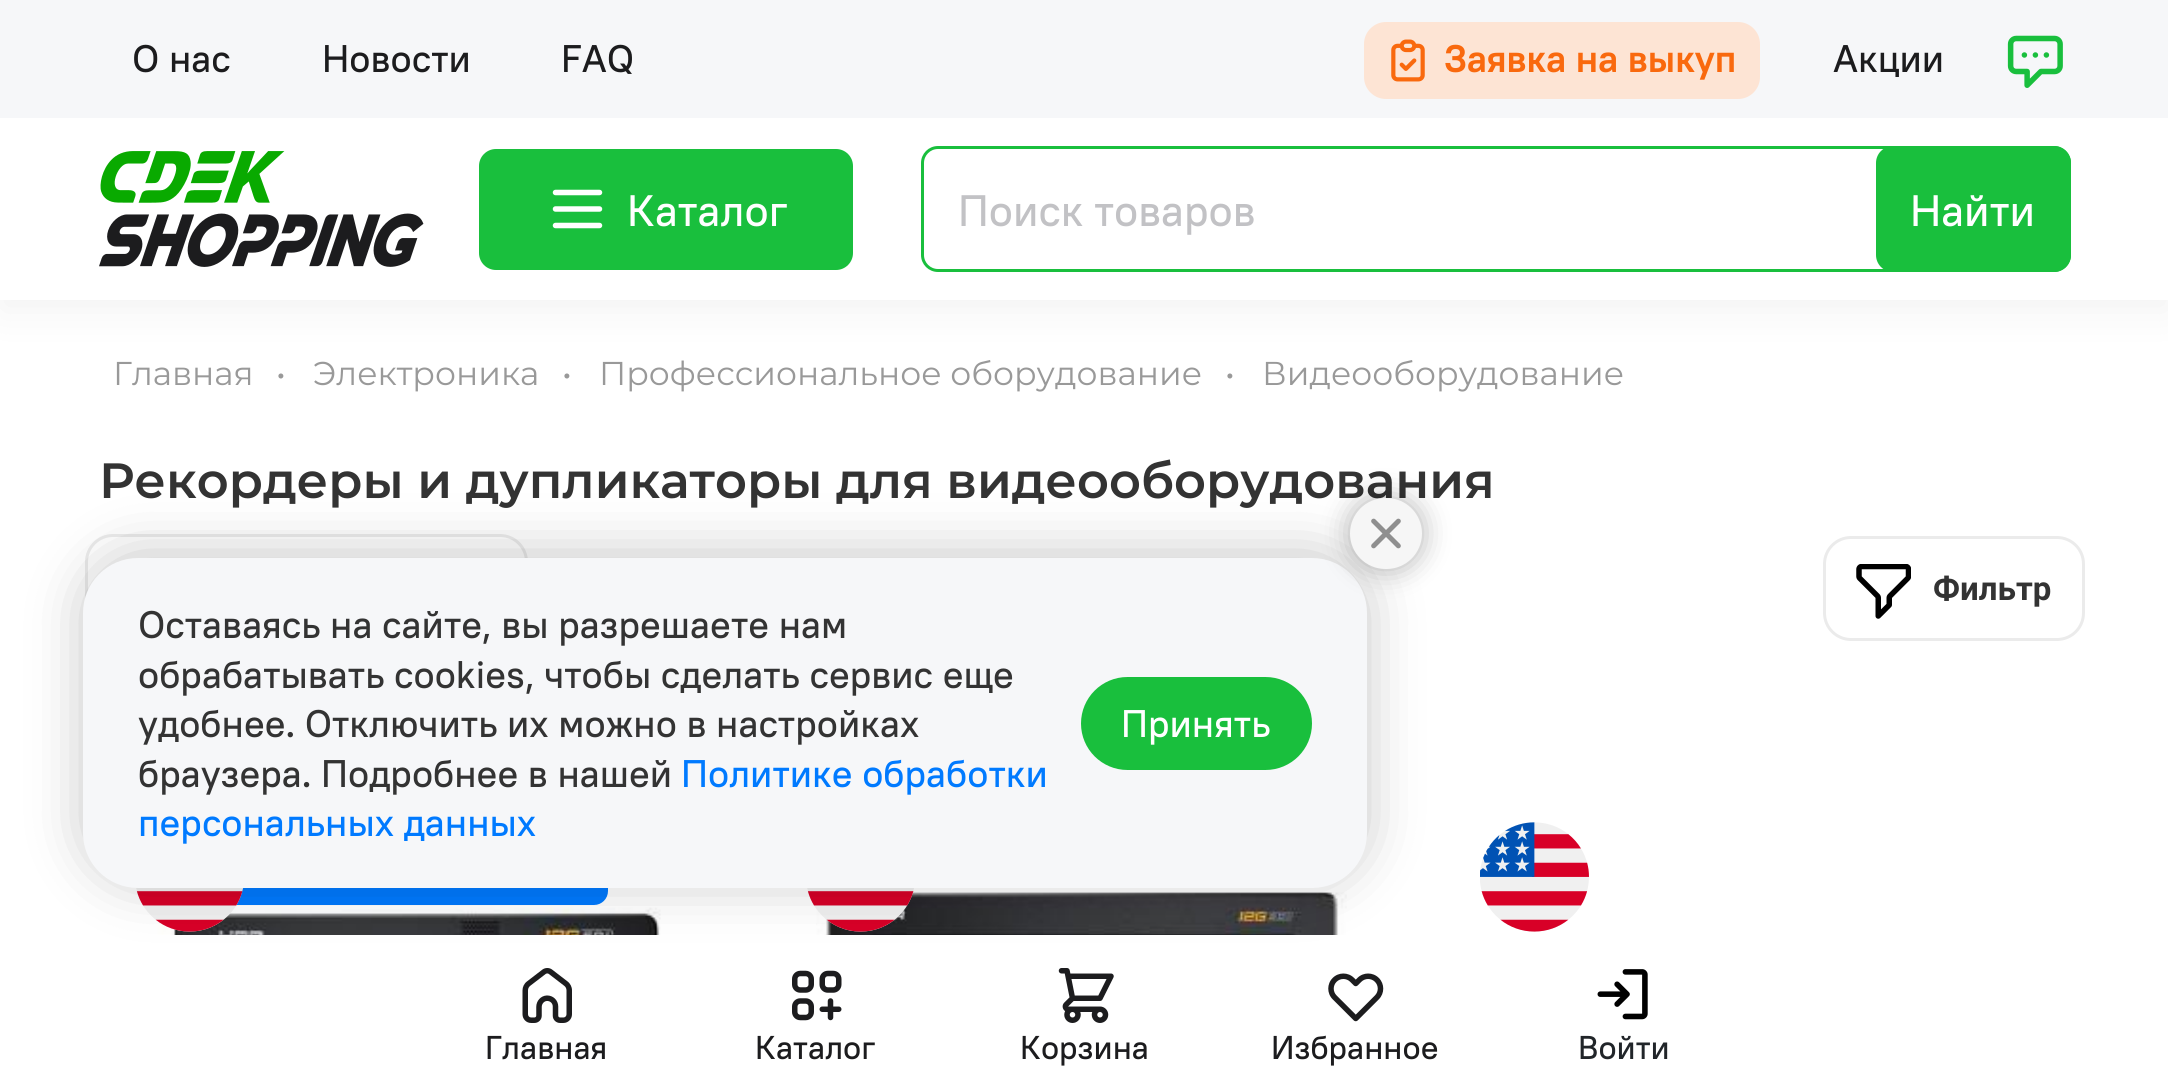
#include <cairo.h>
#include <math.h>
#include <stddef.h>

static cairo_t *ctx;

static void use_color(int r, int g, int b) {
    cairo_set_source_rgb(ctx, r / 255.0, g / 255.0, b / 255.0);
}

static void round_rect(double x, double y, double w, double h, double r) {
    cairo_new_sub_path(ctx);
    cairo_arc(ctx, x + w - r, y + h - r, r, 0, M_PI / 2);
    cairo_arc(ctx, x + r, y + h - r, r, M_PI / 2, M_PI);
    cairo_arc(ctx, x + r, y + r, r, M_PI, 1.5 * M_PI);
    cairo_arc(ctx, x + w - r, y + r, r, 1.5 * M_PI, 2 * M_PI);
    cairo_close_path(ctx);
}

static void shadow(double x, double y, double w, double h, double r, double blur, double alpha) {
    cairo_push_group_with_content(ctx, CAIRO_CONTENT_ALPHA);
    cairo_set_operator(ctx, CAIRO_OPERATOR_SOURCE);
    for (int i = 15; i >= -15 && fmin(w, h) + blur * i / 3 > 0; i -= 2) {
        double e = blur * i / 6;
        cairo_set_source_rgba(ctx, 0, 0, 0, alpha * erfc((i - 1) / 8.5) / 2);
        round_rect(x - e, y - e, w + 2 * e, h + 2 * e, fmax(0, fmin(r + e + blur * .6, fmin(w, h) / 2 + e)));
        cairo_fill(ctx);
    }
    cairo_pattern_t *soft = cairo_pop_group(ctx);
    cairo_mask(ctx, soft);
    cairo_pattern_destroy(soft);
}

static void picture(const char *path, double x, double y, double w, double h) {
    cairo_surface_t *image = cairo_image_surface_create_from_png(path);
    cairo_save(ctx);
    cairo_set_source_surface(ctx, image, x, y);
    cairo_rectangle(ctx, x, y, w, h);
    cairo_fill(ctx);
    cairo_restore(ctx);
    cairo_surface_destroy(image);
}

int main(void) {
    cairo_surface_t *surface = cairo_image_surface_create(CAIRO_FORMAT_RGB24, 2168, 1092);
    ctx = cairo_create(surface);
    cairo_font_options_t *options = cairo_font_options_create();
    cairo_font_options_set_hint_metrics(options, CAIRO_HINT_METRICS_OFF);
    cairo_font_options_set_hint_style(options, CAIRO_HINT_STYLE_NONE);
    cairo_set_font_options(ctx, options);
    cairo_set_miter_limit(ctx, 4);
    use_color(255, 255, 255);
    cairo_paint(ctx);
    use_color(0, 0, 0);
    shadow(0, 11, 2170, 300, 0, 20.5, 0.05);
    use_color(246, 247, 249);
    cairo_rectangle(ctx, 0, 0, 2168, 118);
    cairo_fill(ctx);
    cairo_select_font_face(ctx, "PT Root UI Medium", CAIRO_FONT_SLANT_NORMAL, CAIRO_FONT_WEIGHT_NORMAL);
    cairo_set_font_size(ctx, 38.5);
    use_color(28, 28, 30);
    cairo_move_to(ctx, 132, 72);
    cairo_show_text(ctx, "О нас");
    cairo_move_to(ctx, 322, 72);
    cairo_show_text(ctx, "Новости");
    cairo_move_to(ctx, 561, 72);
    cairo_show_text(ctx, "FAQ");
    use_color(253, 228, 212);
    round_rect(1364, 22, 396, 77, 22);
    cairo_fill(ctx);
    picture("img1.png", 1391, 39, 34, 43);
    cairo_select_font_face(ctx, "PT Root UI", CAIRO_FONT_SLANT_NORMAL, CAIRO_FONT_WEIGHT_BOLD);
    use_color(249, 105, 14);
    cairo_move_to(ctx, 1444, 72);
    cairo_show_text(ctx, "Заявка на выкуп");
    cairo_select_font_face(ctx, "PT Root UI Medium", CAIRO_FONT_SLANT_NORMAL, CAIRO_FONT_WEIGHT_NORMAL);
    use_color(28, 28, 30);
    cairo_move_to(ctx, 1833, 72);
    cairo_show_text(ctx, "Акции");
    picture("img2.png", 2007, 35, 56, 53);
    use_color(255, 255, 255);
    cairo_rectangle(ctx, 0, 118, 2168, 182);
    cairo_fill(ctx);
    picture("img3.png", 99, 151, 325, 116);
    use_color(25, 191, 61);
    round_rect(479, 149, 374, 121, 17);
    cairo_fill(ctx);
    picture("img4.png", 552, 189, 51, 40);
    cairo_set_font_size(ctx, 44);
    use_color(255, 255, 255);
    cairo_move_to(ctx, 627, 226);
    cairo_show_text(ctx, "Каталог");
    round_rect(922.5, 147.5, 1147, 123, 15.5);
    use_color(25, 191, 61);
    cairo_set_line_width(ctx, 3);
    cairo_stroke(ctx);
    use_color(194, 194, 197);
    cairo_move_to(ctx, 958, 226);
    cairo_show_text(ctx, "Поиск товаров");
    use_color(25, 191, 61);
    round_rect(1876, 146, 195, 126, 17);
    cairo_fill(ctx);
    use_color(255, 255, 255);
    cairo_move_to(ctx, 1910, 226);
    cairo_show_text(ctx, "Найти");
    cairo_select_font_face(ctx, "Montserrat", CAIRO_FONT_SLANT_NORMAL, CAIRO_FONT_WEIGHT_NORMAL);
    cairo_set_font_size(ctx, 33);
    use_color(153, 153, 153);
    cairo_move_to(ctx, 113, 385);
    cairo_show_text(ctx, "Главная");
    cairo_move_to(ctx, 276, 385);
    cairo_show_text(ctx, "•");
    cairo_move_to(ctx, 313, 385);
    cairo_show_text(ctx, "Электроника");
    cairo_move_to(ctx, 562, 385);
    cairo_show_text(ctx, "•");
    cairo_move_to(ctx, 599, 385);
    cairo_show_text(ctx, "Профессиональное оборудование");
    cairo_move_to(ctx, 1225, 385);
    cairo_show_text(ctx, "•");
    cairo_move_to(ctx, 1262, 385);
    cairo_show_text(ctx, "Видеооборудование");
    cairo_select_font_face(ctx, "Montserrat SemiBold", CAIRO_FONT_SLANT_NORMAL, CAIRO_FONT_WEIGHT_NORMAL);
    cairo_set_font_size(ctx, 49.5);
    use_color(51, 51, 51);
    cairo_move_to(ctx, 99, 498);
    cairo_show_text(ctx, "Рекордеры и дупликаторы для видеооборудования");
    round_rect(86.5, 535.5, 440, 107, 26.5);
    use_color(235, 235, 235);
    cairo_stroke(ctx);
    round_rect(1824.5, 537.5, 259, 102, 26.5);
    cairo_stroke(ctx);
    picture("img5.png", 1856, 564, 55, 55);
    cairo_select_font_face(ctx, "Roboto", CAIRO_FONT_SLANT_NORMAL, CAIRO_FONT_WEIGHT_BOLD);
    cairo_set_font_size(ctx, 33);
    use_color(51, 51, 51);
    cairo_move_to(ctx, 1933, 600);
    cairo_show_text(ctx, "Фильтр");
    use_color(0, 122, 255);
    round_rect(179, 844, 429, 61, 14);
    cairo_fill(ctx);
    picture("img7.png", 145, 907, 516, 28);
    picture("img6.png", 136, 887, 108, 45);
    picture("img9.png", 816, 892, 531, 43);
    picture("img8.png", 807, 888, 108, 44);
    picture("img10.png", 1480, 822, 109, 110);
    use_color(0, 0, 0);
    shadow(83, 553, 1284, 330, 55, 27.5, 0.22);
    use_color(246, 247, 249);
    round_rect(83, 558, 1284, 330, 55);
    cairo_fill(ctx);
    use_color(0, 0, 0);
    shadow(1350, 498, 72, 71, 35.5, 14, 0.3);
    use_color(246, 246, 246);
    round_rect(1350, 498, 72, 71, 35.5);
    cairo_fill(ctx);
    picture("img11.png", 1371, 518, 30, 31);
    cairo_select_font_face(ctx, "PT Root UI Medium", CAIRO_FONT_SLANT_NORMAL, CAIRO_FONT_WEIGHT_NORMAL);
    cairo_set_font_size(ctx, 38.5);
    use_color(51, 51, 51);
    cairo_move_to(ctx, 138, 638);
    cairo_show_text(ctx, "Оставаясь на сайте, вы разрешаете нам");
    cairo_move_to(ctx, 138, 688);
    cairo_show_text(ctx, "обрабатывать cookies, чтобы сделать сервис еще");
    cairo_move_to(ctx, 138, 737);
    cairo_show_text(ctx, "удобнее. Отключить их можно в настройках");
    cairo_move_to(ctx, 138, 787);
    cairo_show_text(ctx, "браузера. Подробнее в нашей");
    use_color(0, 122, 255);
    cairo_move_to(ctx, 681, 787);
    cairo_show_text(ctx, "Политике обработки");
    cairo_move_to(ctx, 138, 836);
    cairo_show_text(ctx, "персональных данных");
    use_color(25, 191, 61);
    round_rect(1081, 677, 231, 93, 46.5);
    cairo_fill(ctx);
    use_color(255, 255, 255);
    cairo_move_to(ctx, 1121, 737);
    cairo_show_text(ctx, "Принять");
    picture("img12.png", 522, 968, 50, 55);
    cairo_set_font_size(ctx, 33);
    use_color(28, 28, 30);
    cairo_move_to(ctx, 485, 1059);
    cairo_show_text(ctx, "Главная");
    picture("img13.png", 792, 970, 50, 51);
    cairo_move_to(ctx, 755, 1059);
    cairo_show_text(ctx, "Каталог");
    picture("img14.png", 1058, 968, 56, 55);
    cairo_move_to(ctx, 1020, 1059);
    cairo_show_text(ctx, "Корзина");
    picture("img15.png", 1328, 973, 56, 49);
    cairo_move_to(ctx, 1271, 1059);
    cairo_show_text(ctx, "Избранное");
    picture("img16.png", 1597, 969, 51, 51);
    use_color(33, 37, 41);
    cairo_move_to(ctx, 1578, 1059);
    cairo_show_text(ctx, "Войти");
    cairo_surface_write_to_png(surface, "result.png");
    cairo_font_options_destroy(options);
    cairo_destroy(ctx);
    cairo_surface_destroy(surface);
    return 0;
}
